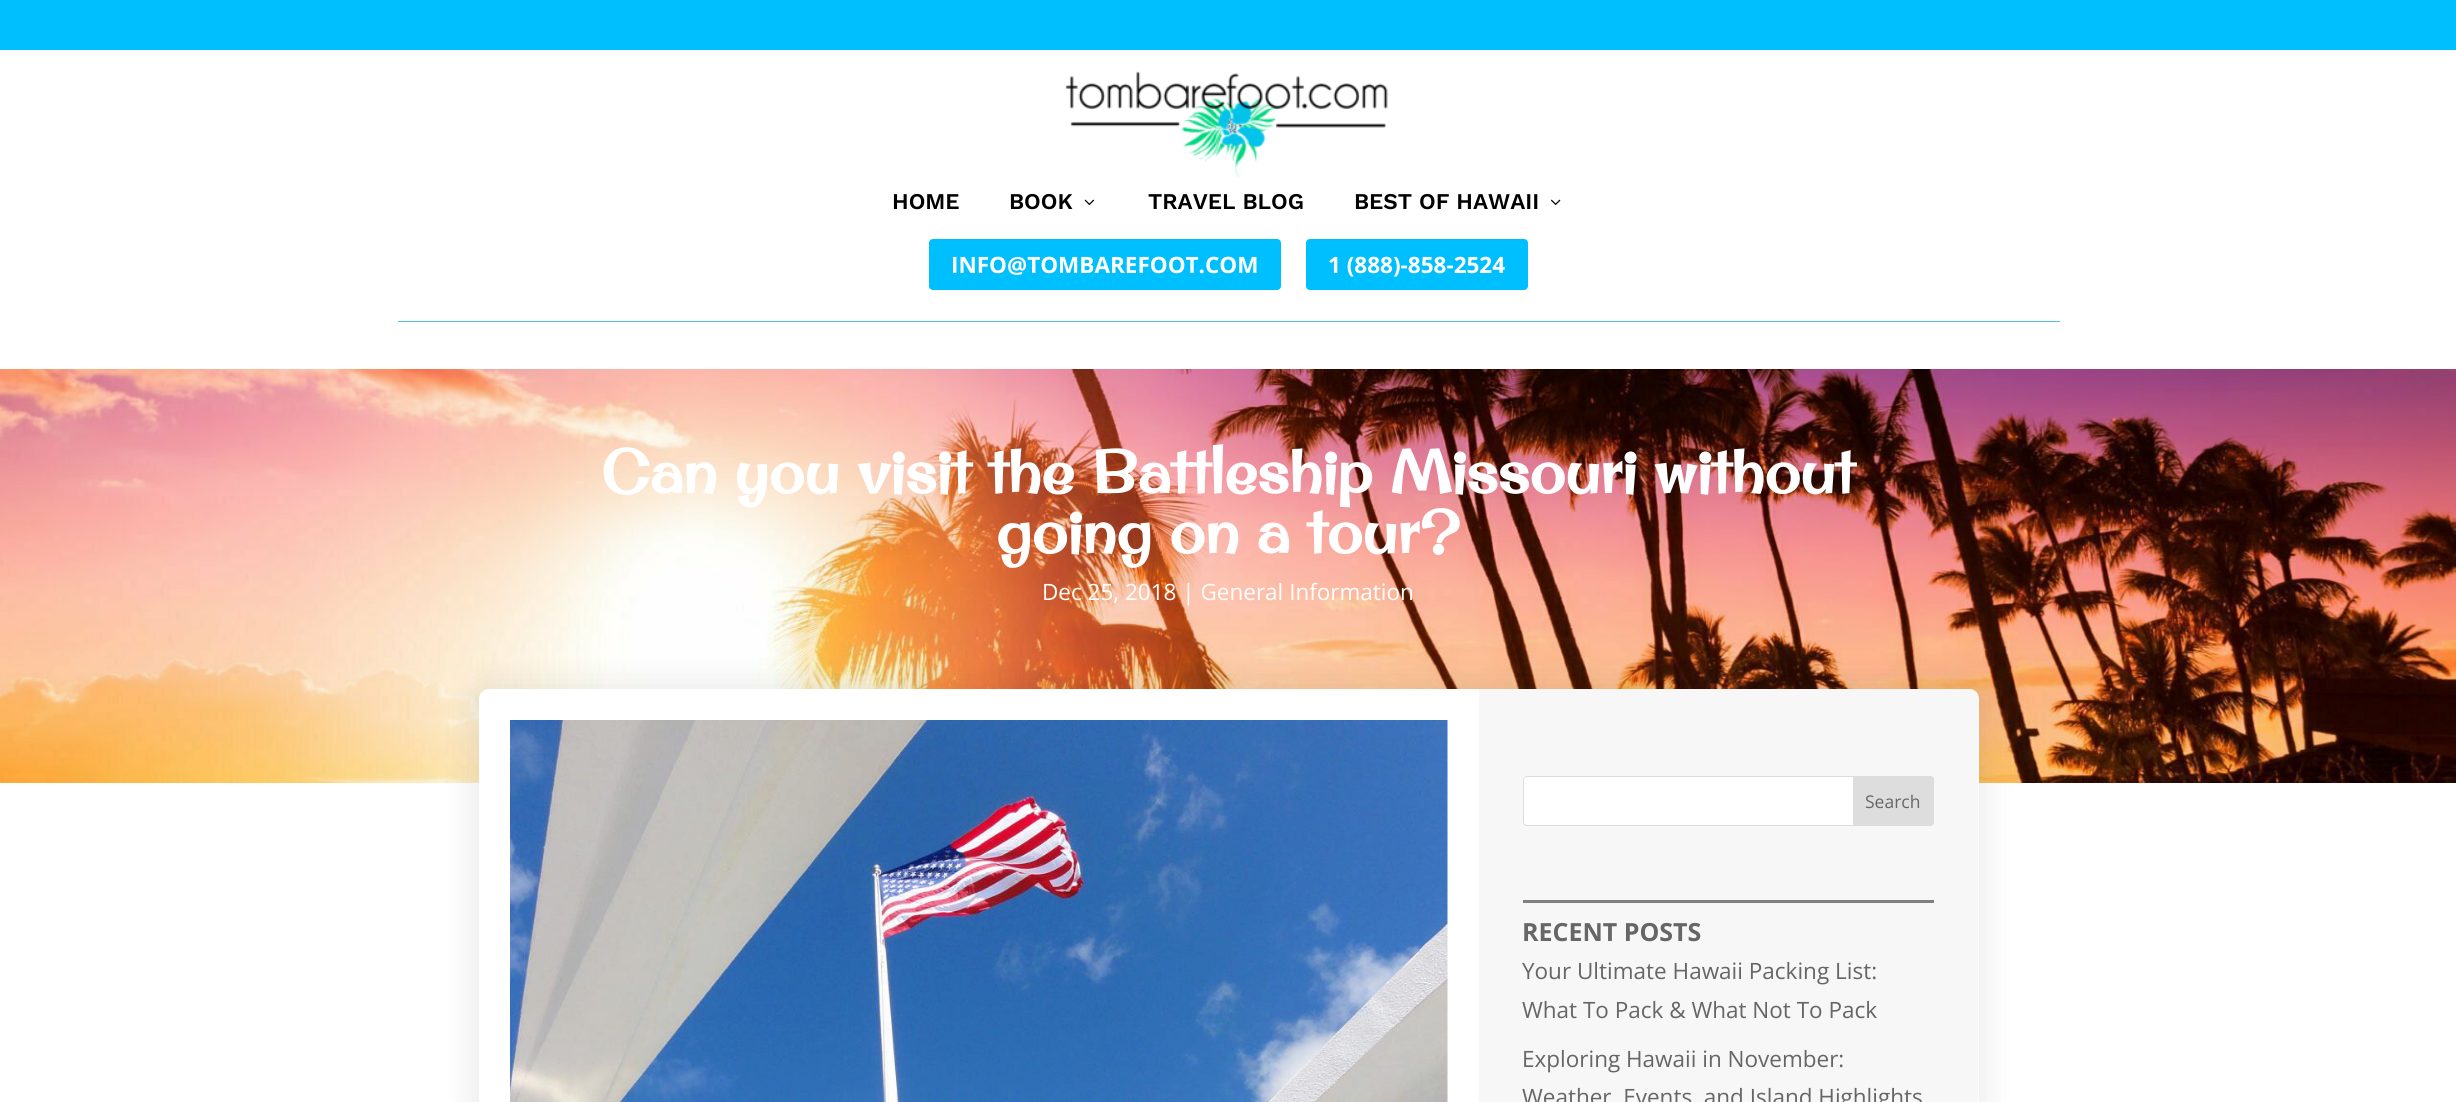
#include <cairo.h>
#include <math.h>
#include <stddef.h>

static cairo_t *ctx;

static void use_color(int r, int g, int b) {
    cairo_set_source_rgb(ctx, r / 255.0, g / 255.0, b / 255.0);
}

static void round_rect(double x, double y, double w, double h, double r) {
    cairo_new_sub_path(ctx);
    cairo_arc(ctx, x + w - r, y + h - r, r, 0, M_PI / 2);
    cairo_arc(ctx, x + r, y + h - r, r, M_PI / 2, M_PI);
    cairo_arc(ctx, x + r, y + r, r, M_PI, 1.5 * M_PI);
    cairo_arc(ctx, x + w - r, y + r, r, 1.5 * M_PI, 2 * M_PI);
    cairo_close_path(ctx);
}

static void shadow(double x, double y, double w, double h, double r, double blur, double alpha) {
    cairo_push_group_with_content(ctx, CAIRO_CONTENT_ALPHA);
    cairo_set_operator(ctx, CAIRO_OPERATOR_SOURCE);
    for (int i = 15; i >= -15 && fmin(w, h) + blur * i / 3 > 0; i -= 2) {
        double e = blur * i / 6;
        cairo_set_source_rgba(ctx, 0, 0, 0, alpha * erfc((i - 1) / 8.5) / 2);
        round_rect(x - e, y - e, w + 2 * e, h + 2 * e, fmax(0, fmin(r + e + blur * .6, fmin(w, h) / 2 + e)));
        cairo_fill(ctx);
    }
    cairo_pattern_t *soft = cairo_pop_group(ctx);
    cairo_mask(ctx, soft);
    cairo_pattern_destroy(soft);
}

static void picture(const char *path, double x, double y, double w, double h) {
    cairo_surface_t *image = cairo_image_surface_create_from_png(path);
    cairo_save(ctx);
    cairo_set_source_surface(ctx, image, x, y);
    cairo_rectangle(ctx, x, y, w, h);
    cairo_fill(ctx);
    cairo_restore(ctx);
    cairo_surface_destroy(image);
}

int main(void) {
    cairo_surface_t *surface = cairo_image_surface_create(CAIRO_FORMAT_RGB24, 2456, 1102);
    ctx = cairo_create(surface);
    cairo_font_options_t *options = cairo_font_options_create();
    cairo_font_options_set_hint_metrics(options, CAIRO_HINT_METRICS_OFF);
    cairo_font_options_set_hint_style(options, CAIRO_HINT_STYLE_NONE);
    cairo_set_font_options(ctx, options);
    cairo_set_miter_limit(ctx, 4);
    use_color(255, 255, 255);
    cairo_paint(ctx);
    use_color(0, 191, 255);
    cairo_rectangle(ctx, 0, 0, 2456, 50);
    cairo_fill(ctx);
    picture("img1.png", 1065, 71, 323, 106);
    cairo_select_font_face(ctx, "Work Sans SemiBold", CAIRO_FONT_SLANT_NORMAL, CAIRO_FONT_WEIGHT_NORMAL);
    cairo_set_font_size(ctx, 22.5);
    use_color(0, 0, 0);
    cairo_move_to(ctx, 892, 209);
    cairo_show_text(ctx, "HOME");
    cairo_move_to(ctx, 1009, 209);
    cairo_show_text(ctx, "BOOK");
    picture("img2.png", 1084, 199, 10, 6);
    cairo_move_to(ctx, 1148, 209);
    cairo_show_text(ctx, "TRAVEL BLOG");
    cairo_move_to(ctx, 1354, 209);
    cairo_show_text(ctx, "BEST OF HAWAII");
    picture("img3.png", 1551, 199, 10, 6);
    use_color(0, 191, 255);
    round_rect(929, 239, 352, 51, 4);
    cairo_fill(ctx);
    cairo_select_font_face(ctx, "Open Sans", CAIRO_FONT_SLANT_NORMAL, CAIRO_FONT_WEIGHT_BOLD);
    use_color(255, 255, 255);
    cairo_move_to(ctx, 951, 273);
    cairo_show_text(ctx, "INFO@TOMBAREFOOT.COM");
    use_color(0, 191, 255);
    round_rect(1306, 239, 222, 51, 4);
    cairo_fill(ctx);
    use_color(255, 255, 255);
    cairo_move_to(ctx, 1328, 273);
    cairo_show_text(ctx, "1 (888)-858-2524");
    use_color(83, 192, 231);
    cairo_rectangle(ctx, 398, 321, 1662, 1);
    cairo_fill(ctx);
    picture("img4.png", 0, 369, 2456, 414);
    cairo_select_font_face(ctx, "Original Surfer", CAIRO_FONT_SLANT_NORMAL, CAIRO_FONT_WEIGHT_BOLD);
    cairo_set_font_size(ctx, 60);
    use_color(255, 255, 255);
    cairo_move_to(ctx, 601, 493);
    cairo_show_text(ctx, "Can you visit the Battleship Missouri without");
    cairo_move_to(ctx, 996, 553);
    cairo_show_text(ctx, "going on a tour?");
    cairo_select_font_face(ctx, "Open Sans", CAIRO_FONT_SLANT_NORMAL, CAIRO_FONT_WEIGHT_NORMAL);
    cairo_set_font_size(ctx, 22.5);
    cairo_move_to(ctx, 1042, 600);
    cairo_show_text(ctx, "Dec 25, 2018 | General Information");
    use_color(0, 0, 0);
    shadow(469, 681, 1520, 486, 20, 15, 0.07);
    use_color(255, 255, 255);
    round_rect(479, 689, 1500, 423, 10);
    cairo_fill(ctx);
    picture("img5.png", 510, 720, 938, 382);
    cairo_save(ctx);
    round_rect(479, 689, 1500, 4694, 10);
    cairo_clip(ctx);
    use_color(247, 247, 247);
    cairo_rectangle(ctx, 1479, 689, 499, 413);
    cairo_fill(ctx);
    cairo_restore(ctx);
    round_rect(1523.5, 776.5, 410, 49, 3.5);
    cairo_fill_preserve(ctx);
    use_color(221, 221, 221);
    cairo_set_line_width(ctx, 1);
    cairo_stroke(ctx);
    cairo_new_path(ctx);
    cairo_move_to(ctx, 1853.5, 776.5);
    cairo_line_to(ctx, 1930, 776.5);
    cairo_curve_to(ctx, 1932, 776.5, 1933.5, 778, 1933.5, 780);
    cairo_line_to(ctx, 1933.5, 822);
    cairo_curve_to(ctx, 1933.5, 824, 1932, 825.5, 1930, 825.5);
    cairo_line_to(ctx, 1853.5, 825.5);
    cairo_close_path(ctx);
    cairo_fill_preserve(ctx);
    cairo_stroke(ctx);
    cairo_set_font_size(ctx, 17.5);
    use_color(102, 102, 102);
    cairo_move_to(ctx, 1865, 808);
    cairo_show_text(ctx, "Search");
    use_color(128, 128, 128);
    cairo_rectangle(ctx, 1523, 900, 411, 3);
    cairo_fill(ctx);
    cairo_select_font_face(ctx, "Open Sans", CAIRO_FONT_SLANT_NORMAL, CAIRO_FONT_WEIGHT_BOLD);
    cairo_set_font_size(ctx, 25);
    use_color(102, 102, 102);
    cairo_move_to(ctx, 1522, 941);
    cairo_show_text(ctx, "RECENT POSTS");
    cairo_select_font_face(ctx, "Open Sans", CAIRO_FONT_SLANT_NORMAL, CAIRO_FONT_WEIGHT_NORMAL);
    cairo_set_font_size(ctx, 22.5);
    cairo_move_to(ctx, 1522, 979);
    cairo_show_text(ctx, "Your Ultimate Hawaii Packing List:");
    cairo_move_to(ctx, 1522, 1018);
    cairo_show_text(ctx, "What To Pack & What Not To Pack");
    cairo_move_to(ctx, 1522, 1067);
    cairo_show_text(ctx, "Exploring Hawaii in November:");
    cairo_move_to(ctx, 1522, 1105);
    cairo_show_text(ctx, "Weather, Events, and Island Highlights");
    cairo_surface_write_to_png(surface, "result.png");
    cairo_font_options_destroy(options);
    cairo_destroy(ctx);
    cairo_surface_destroy(surface);
    return 0;
}
